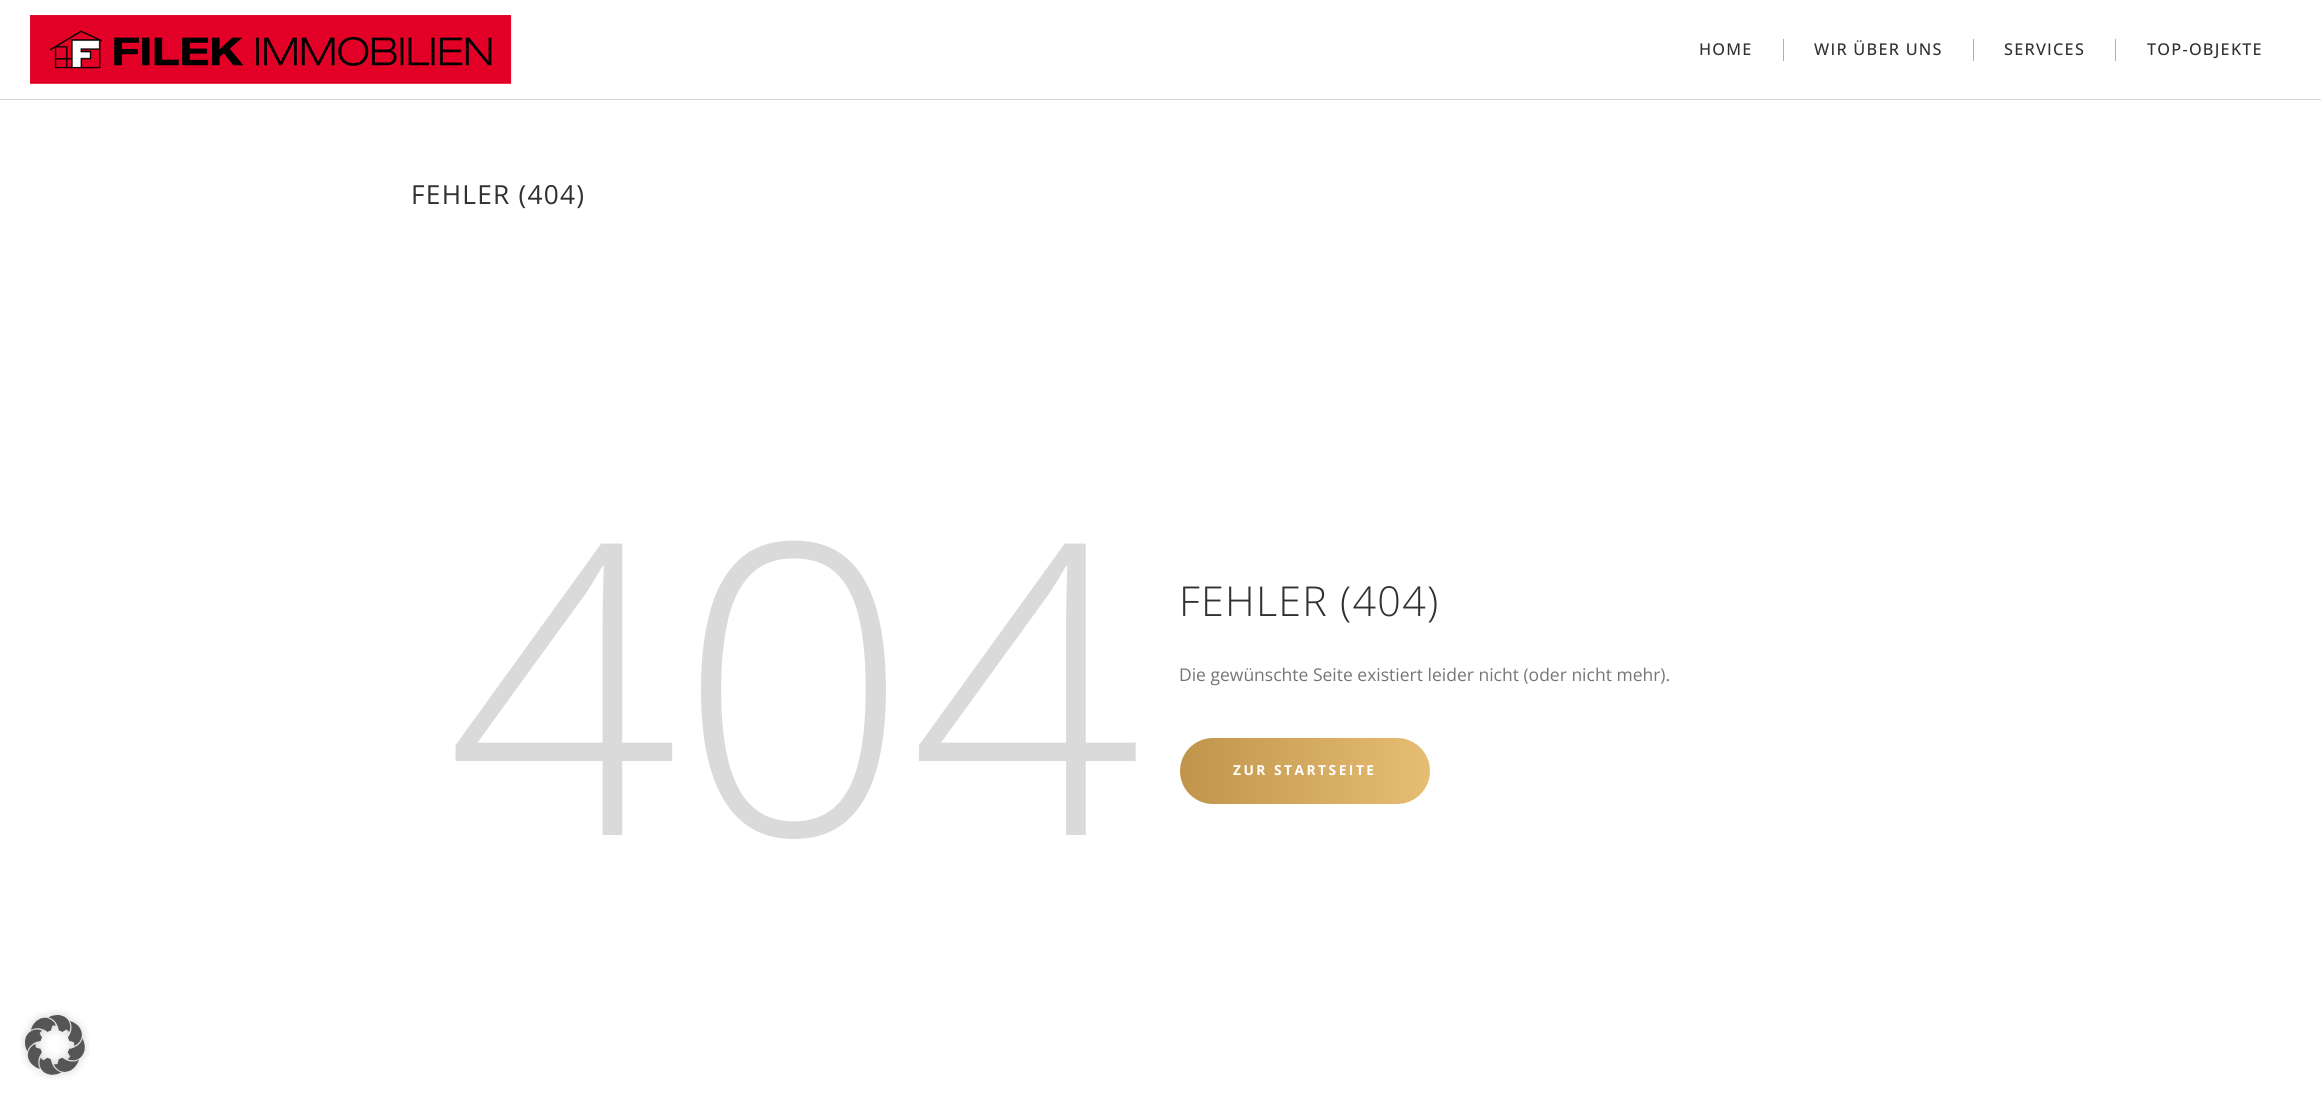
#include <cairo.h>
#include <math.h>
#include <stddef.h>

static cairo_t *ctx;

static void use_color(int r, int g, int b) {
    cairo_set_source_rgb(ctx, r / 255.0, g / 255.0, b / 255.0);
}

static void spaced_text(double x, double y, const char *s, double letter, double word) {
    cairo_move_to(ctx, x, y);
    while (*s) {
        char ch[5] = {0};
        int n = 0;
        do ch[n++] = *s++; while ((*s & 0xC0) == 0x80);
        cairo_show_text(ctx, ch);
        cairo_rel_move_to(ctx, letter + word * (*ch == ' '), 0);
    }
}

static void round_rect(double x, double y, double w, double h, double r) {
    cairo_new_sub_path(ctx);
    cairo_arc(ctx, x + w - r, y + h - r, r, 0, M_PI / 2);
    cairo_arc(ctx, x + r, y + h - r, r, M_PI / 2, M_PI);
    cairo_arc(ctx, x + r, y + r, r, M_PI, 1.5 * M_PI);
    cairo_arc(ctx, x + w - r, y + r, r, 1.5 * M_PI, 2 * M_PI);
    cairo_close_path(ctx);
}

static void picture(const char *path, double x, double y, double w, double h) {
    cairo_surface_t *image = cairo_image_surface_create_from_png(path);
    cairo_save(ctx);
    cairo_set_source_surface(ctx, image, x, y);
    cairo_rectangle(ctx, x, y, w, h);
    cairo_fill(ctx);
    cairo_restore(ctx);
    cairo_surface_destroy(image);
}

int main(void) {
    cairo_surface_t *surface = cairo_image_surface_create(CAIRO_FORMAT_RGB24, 2321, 1100);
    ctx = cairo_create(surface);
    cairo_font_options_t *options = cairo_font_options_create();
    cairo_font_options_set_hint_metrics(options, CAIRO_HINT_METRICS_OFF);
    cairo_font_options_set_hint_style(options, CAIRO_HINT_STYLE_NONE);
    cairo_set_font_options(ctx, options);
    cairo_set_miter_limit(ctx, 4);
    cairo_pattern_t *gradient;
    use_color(255, 255, 255);
    cairo_paint(ctx);
    use_color(213, 213, 213);
    cairo_rectangle(ctx, 0, 99, 2321, 1);
    cairo_fill(ctx);
    picture("img1.png", 30, 15, 482, 69);
    cairo_select_font_face(ctx, "Open Sans Medium", CAIRO_FONT_SLANT_NORMAL, CAIRO_FONT_WEIGHT_NORMAL);
    cairo_set_font_size(ctx, 16.25);
    use_color(49, 49, 49);
    spaced_text(1699, 55, "HOME", 1.25, 0);
    use_color(214, 171, 96);
    cairo_rectangle(ctx, 1783, 39, 1, 22);
    cairo_fill(ctx);
    use_color(49, 49, 49);
    spaced_text(1814, 55, "WIR ÜBER UNS", 1.25, 0);
    use_color(214, 171, 96);
    cairo_rectangle(ctx, 1973, 39, 1, 22);
    cairo_fill(ctx);
    use_color(49, 49, 49);
    spaced_text(2004, 55, "SERVICES", 1.25, 0);
    use_color(214, 171, 96);
    cairo_rectangle(ctx, 2115, 39, 1, 22);
    cairo_fill(ctx);
    use_color(49, 49, 49);
    spaced_text(2147, 55, "TOP-OBJEKTE", 1.25, 0);
    cairo_select_font_face(ctx, "Open Sans", CAIRO_FONT_SLANT_NORMAL, CAIRO_FONT_WEIGHT_NORMAL);
    cairo_set_font_size(ctx, 26.25);
    spaced_text(411, 204, "FEHLER (404)", 1.25, 0);
    cairo_select_font_face(ctx, "Open Sans Light", CAIRO_FONT_SLANT_NORMAL, CAIRO_FONT_WEIGHT_NORMAL);
    cairo_set_font_size(ctx, 406);
    use_color(218, 218, 218);
    cairo_move_to(ctx, 446, 835);
    cairo_show_text(ctx, "404");
    cairo_set_font_size(ctx, 41.25);
    use_color(49, 49, 49);
    spaced_text(1179, 616, "FEHLER (404)", 1.25, 0);
    cairo_select_font_face(ctx, "Open Sans", CAIRO_FONT_SLANT_NORMAL, CAIRO_FONT_WEIGHT_NORMAL);
    cairo_set_font_size(ctx, 17.5);
    use_color(117, 117, 117);
    cairo_move_to(ctx, 1179, 681);
    cairo_show_text(ctx, "Die gewünschte Seite existiert leider nicht (oder nicht mehr).");
    gradient = cairo_pattern_create_linear(1180, 771, 1430, 771);
    cairo_pattern_add_color_stop_rgba(gradient, 0, 0.753, 0.584, 0.294, 1);
    cairo_pattern_add_color_stop_rgba(gradient, 1, 0.906, 0.741, 0.455, 1);
    cairo_set_source(ctx, gradient);
    cairo_pattern_destroy(gradient);
    round_rect(1180, 738, 250, 66, 33);
    cairo_fill(ctx);
    cairo_select_font_face(ctx, "Open Sans", CAIRO_FONT_SLANT_NORMAL, CAIRO_FONT_WEIGHT_BOLD);
    cairo_set_font_size(ctx, 13.75);
    use_color(255, 255, 255);
    spaced_text(1233, 775, "ZUR STARTSEITE", 2.5, 0);
    picture("img2.png", 20, 1010, 70, 70);
    cairo_surface_write_to_png(surface, "result.png");
    cairo_font_options_destroy(options);
    cairo_destroy(ctx);
    cairo_surface_destroy(surface);
    return 0;
}
